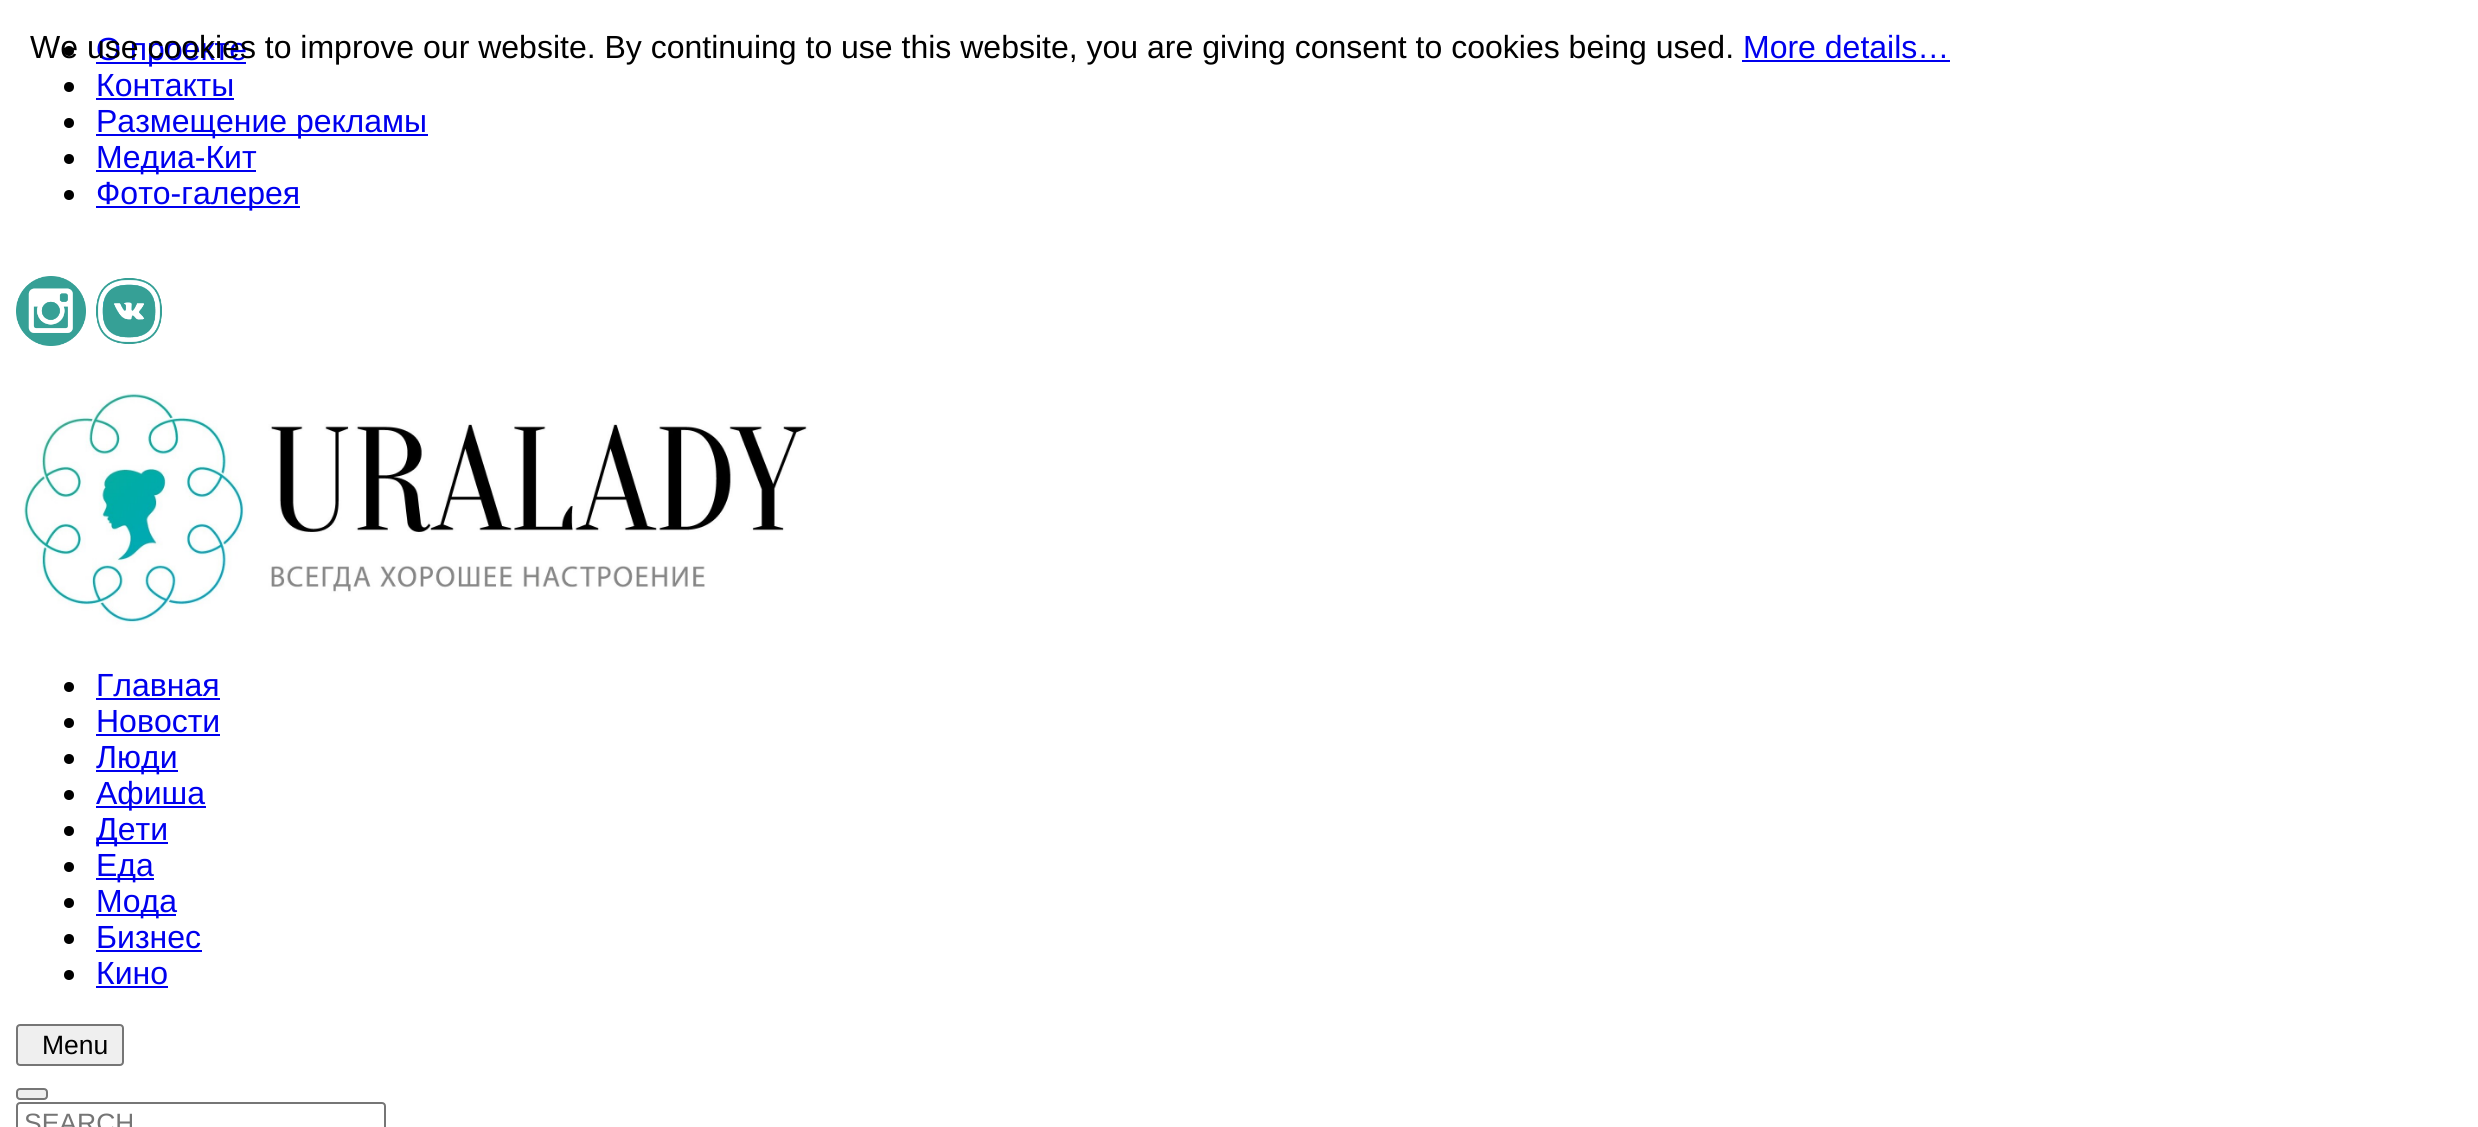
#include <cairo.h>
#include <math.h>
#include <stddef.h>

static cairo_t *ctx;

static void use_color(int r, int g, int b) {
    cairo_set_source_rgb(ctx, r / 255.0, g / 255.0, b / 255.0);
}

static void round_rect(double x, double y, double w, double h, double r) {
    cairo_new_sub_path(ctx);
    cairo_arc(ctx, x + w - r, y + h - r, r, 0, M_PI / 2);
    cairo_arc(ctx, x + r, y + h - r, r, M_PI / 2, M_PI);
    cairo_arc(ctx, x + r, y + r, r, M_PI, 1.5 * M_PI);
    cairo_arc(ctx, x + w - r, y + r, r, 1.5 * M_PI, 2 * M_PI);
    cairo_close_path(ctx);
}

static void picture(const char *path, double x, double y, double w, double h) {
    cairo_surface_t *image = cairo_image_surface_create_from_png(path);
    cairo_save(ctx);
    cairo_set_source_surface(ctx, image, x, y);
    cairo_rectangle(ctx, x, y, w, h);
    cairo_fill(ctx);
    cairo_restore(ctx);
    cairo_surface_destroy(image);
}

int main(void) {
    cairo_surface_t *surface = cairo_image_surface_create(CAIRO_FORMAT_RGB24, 2478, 1127);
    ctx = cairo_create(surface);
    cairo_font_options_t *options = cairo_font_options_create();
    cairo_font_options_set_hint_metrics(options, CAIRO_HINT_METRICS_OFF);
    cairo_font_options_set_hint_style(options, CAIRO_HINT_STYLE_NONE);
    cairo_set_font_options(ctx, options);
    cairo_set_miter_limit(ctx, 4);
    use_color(255, 255, 255);
    cairo_paint(ctx);
    use_color(0, 0, 0);
    cairo_arc(ctx, 69, 51, 5, 0, 2 * M_PI);
    cairo_fill(ctx);
    use_color(0, 0, 238);
    cairo_rectangle(ctx, 96, 62, 150, 2);
    cairo_fill(ctx);
    cairo_select_font_face(ctx, "Liberation Sans", CAIRO_FONT_SLANT_NORMAL, CAIRO_FONT_WEIGHT_NORMAL);
    cairo_set_font_size(ctx, 32);
    cairo_move_to(ctx, 96, 60);
    cairo_show_text(ctx, "О проекте");
    use_color(0, 0, 0);
    cairo_move_to(ctx, 30, 58);
    cairo_show_text(ctx, "We use cookies to improve our website. By continuing to use this website, you are giving consent to cookies being used.");
    use_color(0, 0, 238);
    cairo_move_to(ctx, 1743, 58);
    cairo_show_text(ctx, "More details…");
    cairo_rectangle(ctx, 1742, 60, 208, 2);
    cairo_fill(ctx);
    use_color(0, 0, 0);
    cairo_arc(ctx, 69, 87, 5, 0, 2 * M_PI);
    cairo_fill(ctx);
    use_color(0, 0, 238);
    cairo_move_to(ctx, 96, 96);
    cairo_show_text(ctx, "Контакты");
    cairo_rectangle(ctx, 96, 98, 138, 2);
    cairo_fill(ctx);
    use_color(0, 0, 0);
    cairo_arc(ctx, 69, 123, 5, 0, 2 * M_PI);
    cairo_fill(ctx);
    use_color(0, 0, 238);
    cairo_rectangle(ctx, 96, 134, 332, 2);
    cairo_fill(ctx);
    cairo_move_to(ctx, 96, 132);
    cairo_show_text(ctx, "Размещение рекламы");
    use_color(0, 0, 0);
    cairo_new_path(ctx);
    cairo_arc(ctx, 69, 159, 5, 0, 2 * M_PI);
    cairo_fill(ctx);
    use_color(0, 0, 238);
    cairo_rectangle(ctx, 96, 170, 160, 2);
    cairo_fill(ctx);
    cairo_move_to(ctx, 96, 168);
    cairo_show_text(ctx, "Медиа-Кит");
    use_color(0, 0, 0);
    cairo_new_path(ctx);
    cairo_arc(ctx, 69, 195, 5, 0, 2 * M_PI);
    cairo_fill(ctx);
    use_color(0, 0, 238);
    cairo_rectangle(ctx, 96, 206, 204, 2);
    cairo_fill(ctx);
    cairo_move_to(ctx, 96, 204);
    cairo_show_text(ctx, "Фото-галерея");
    picture("img1.png", 16, 276, 70, 70);
    picture("img2.png", 96, 278, 66, 67);
    picture("img3.png", 23, 393, 785, 235);
    use_color(0, 0, 0);
    cairo_arc(ctx, 69, 687, 5, 0, 2 * M_PI);
    cairo_fill(ctx);
    use_color(0, 0, 238);
    cairo_move_to(ctx, 96, 696);
    cairo_show_text(ctx, "Главная");
    cairo_rectangle(ctx, 96, 698, 124, 2);
    cairo_fill(ctx);
    use_color(0, 0, 0);
    cairo_arc(ctx, 69, 723, 5, 0, 2 * M_PI);
    cairo_fill(ctx);
    use_color(0, 0, 238);
    cairo_move_to(ctx, 96, 732);
    cairo_show_text(ctx, "Новости");
    cairo_rectangle(ctx, 96, 734, 124, 2);
    cairo_fill(ctx);
    use_color(0, 0, 0);
    cairo_arc(ctx, 69, 759, 5, 0, 2 * M_PI);
    cairo_fill(ctx);
    use_color(0, 0, 238);
    cairo_rectangle(ctx, 96, 770, 82, 2);
    cairo_fill(ctx);
    cairo_move_to(ctx, 96, 768);
    cairo_show_text(ctx, "Люди");
    use_color(0, 0, 0);
    cairo_new_path(ctx);
    cairo_arc(ctx, 69, 795, 5, 0, 2 * M_PI);
    cairo_fill(ctx);
    use_color(0, 0, 238);
    cairo_rectangle(ctx, 96, 806, 110, 2);
    cairo_fill(ctx);
    cairo_move_to(ctx, 96, 804);
    cairo_show_text(ctx, "Афиша");
    use_color(0, 0, 0);
    cairo_new_path(ctx);
    cairo_arc(ctx, 69, 831, 5, 0, 2 * M_PI);
    cairo_fill(ctx);
    use_color(0, 0, 238);
    cairo_rectangle(ctx, 96, 842, 72, 2);
    cairo_fill(ctx);
    cairo_move_to(ctx, 96, 840);
    cairo_show_text(ctx, "Дети");
    use_color(0, 0, 0);
    cairo_new_path(ctx);
    cairo_arc(ctx, 69, 867, 5, 0, 2 * M_PI);
    cairo_fill(ctx);
    use_color(0, 0, 238);
    cairo_rectangle(ctx, 96, 878, 58, 2);
    cairo_fill(ctx);
    cairo_move_to(ctx, 96, 876);
    cairo_show_text(ctx, "Еда");
    use_color(0, 0, 0);
    cairo_new_path(ctx);
    cairo_arc(ctx, 69, 903, 5, 0, 2 * M_PI);
    cairo_fill(ctx);
    use_color(0, 0, 238);
    cairo_rectangle(ctx, 96, 914, 80, 2);
    cairo_fill(ctx);
    cairo_move_to(ctx, 96, 912);
    cairo_show_text(ctx, "Мода");
    use_color(0, 0, 0);
    cairo_new_path(ctx);
    cairo_arc(ctx, 69, 939, 5, 0, 2 * M_PI);
    cairo_fill(ctx);
    use_color(0, 0, 238);
    cairo_move_to(ctx, 96, 948);
    cairo_show_text(ctx, "Бизнес");
    cairo_rectangle(ctx, 96, 950, 106, 2);
    cairo_fill(ctx);
    use_color(0, 0, 0);
    cairo_arc(ctx, 69, 975, 5, 0, 2 * M_PI);
    cairo_fill(ctx);
    use_color(0, 0, 238);
    cairo_move_to(ctx, 96, 984);
    cairo_show_text(ctx, "Кино");
    cairo_rectangle(ctx, 96, 986, 72, 2);
    cairo_fill(ctx);
    use_color(239, 239, 239);
    round_rect(17, 1025, 106, 40, 3);
    cairo_fill_preserve(ctx);
    use_color(118, 118, 118);
    cairo_stroke(ctx);
    cairo_set_font_size(ctx, 26.5);
    use_color(0, 0, 0);
    cairo_move_to(ctx, 42, 1054);
    cairo_show_text(ctx, "Menu");
    use_color(239, 239, 239);
    round_rect(17, 1089, 30, 10, 3);
    cairo_fill_preserve(ctx);
    use_color(118, 118, 118);
    cairo_stroke(ctx);
    round_rect(17, 1103, 368, 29, 3);
    cairo_stroke(ctx);
    use_color(117, 117, 117);
    cairo_move_to(ctx, 24, 1132);
    cairo_show_text(ctx, "SEARCH");
    cairo_surface_write_to_png(surface, "result.png");
    cairo_font_options_destroy(options);
    cairo_destroy(ctx);
    cairo_surface_destroy(surface);
    return 0;
}
